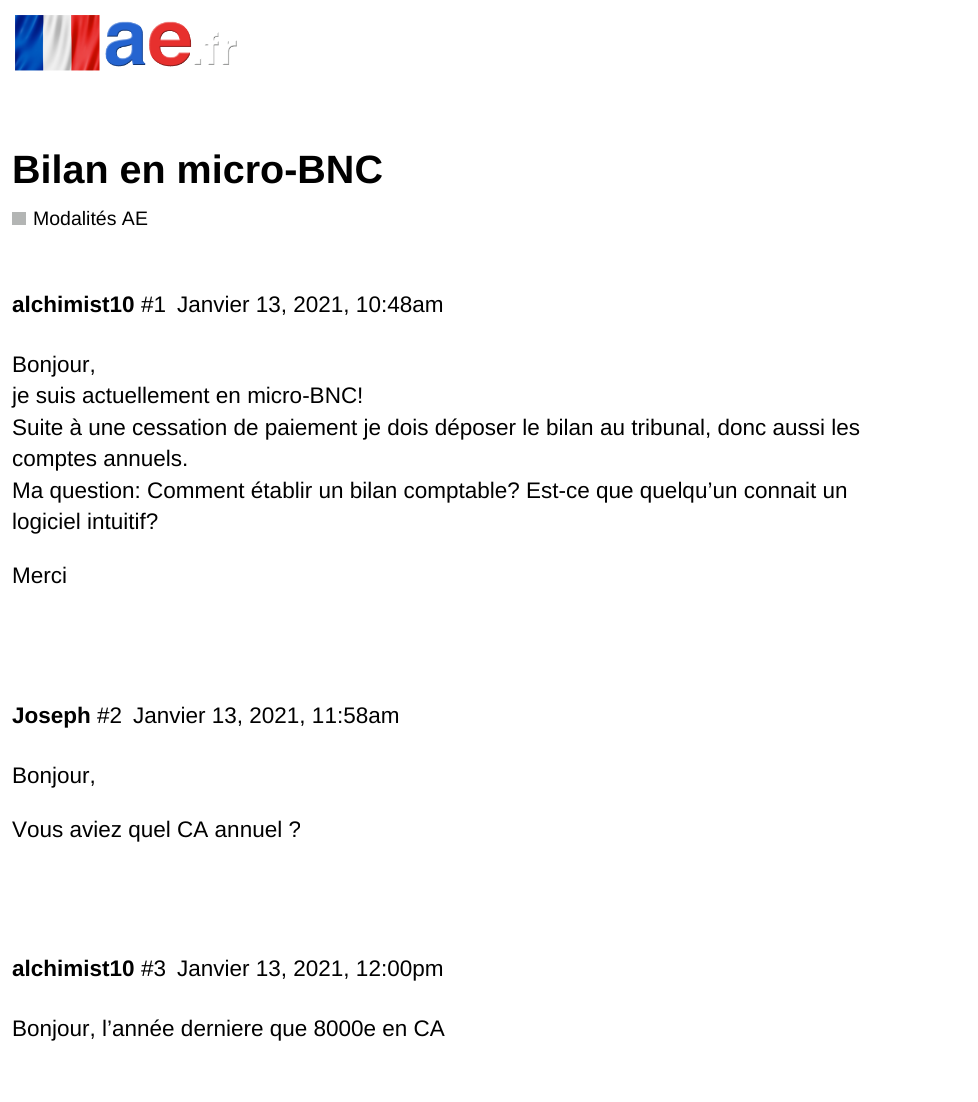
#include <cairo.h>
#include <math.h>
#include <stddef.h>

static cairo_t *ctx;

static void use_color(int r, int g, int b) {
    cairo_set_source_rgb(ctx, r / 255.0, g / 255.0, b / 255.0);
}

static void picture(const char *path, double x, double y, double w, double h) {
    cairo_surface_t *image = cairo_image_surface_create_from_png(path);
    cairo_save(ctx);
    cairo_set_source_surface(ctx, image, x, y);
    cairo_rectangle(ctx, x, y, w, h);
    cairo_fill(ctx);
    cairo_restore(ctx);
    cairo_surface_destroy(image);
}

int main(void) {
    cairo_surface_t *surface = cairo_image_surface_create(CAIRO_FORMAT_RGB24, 978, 1102);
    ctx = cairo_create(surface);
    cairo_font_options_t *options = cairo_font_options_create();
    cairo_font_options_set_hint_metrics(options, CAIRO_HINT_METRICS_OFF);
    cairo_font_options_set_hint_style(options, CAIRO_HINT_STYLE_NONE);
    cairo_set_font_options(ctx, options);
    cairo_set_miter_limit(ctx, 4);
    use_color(255, 255, 255);
    cairo_paint(ctx);
    picture("img1.png", 15, 15, 222, 56);
    cairo_select_font_face(ctx, "Liberation Sans", CAIRO_FONT_SLANT_NORMAL, CAIRO_FONT_WEIGHT_BOLD);
    cairo_set_font_size(ctx, 39.5);
    use_color(0, 0, 0);
    cairo_move_to(ctx, 12, 183);
    cairo_show_text(ctx, "Bilan en micro-BNC");
    use_color(179, 181, 180);
    cairo_rectangle(ctx, 12, 212, 14, 13);
    cairo_fill(ctx);
    cairo_select_font_face(ctx, "Liberation Sans", CAIRO_FONT_SLANT_NORMAL, CAIRO_FONT_WEIGHT_NORMAL);
    cairo_set_font_size(ctx, 19.5);
    use_color(0, 0, 0);
    cairo_move_to(ctx, 33, 225);
    cairo_show_text(ctx, "Modalités AE");
    cairo_select_font_face(ctx, "Liberation Sans", CAIRO_FONT_SLANT_NORMAL, CAIRO_FONT_WEIGHT_BOLD);
    cairo_set_font_size(ctx, 22.5);
    cairo_move_to(ctx, 12, 312);
    cairo_show_text(ctx, "alchimist10");
    cairo_select_font_face(ctx, "Liberation Sans", CAIRO_FONT_SLANT_NORMAL, CAIRO_FONT_WEIGHT_NORMAL);
    cairo_move_to(ctx, 141, 312);
    cairo_show_text(ctx, "#1");
    cairo_move_to(ctx, 177, 312);
    cairo_show_text(ctx, "Janvier 13, 2021, 10:48am");
    cairo_move_to(ctx, 12, 372);
    cairo_show_text(ctx, "Bonjour,");
    cairo_move_to(ctx, 12, 403);
    cairo_show_text(ctx, "je suis actuellement en micro-BNC!");
    cairo_move_to(ctx, 12, 435);
    cairo_show_text(ctx, "Suite à une cessation de paiement je dois déposer le bilan au tribunal, donc aussi les");
    cairo_move_to(ctx, 12, 466);
    cairo_show_text(ctx, "comptes annuels.");
    cairo_move_to(ctx, 12, 498);
    cairo_show_text(ctx, "Ma question: Comment établir un bilan comptable? Est-ce que quelqu’un connait un");
    cairo_move_to(ctx, 12, 529);
    cairo_show_text(ctx, "logiciel intuitif?");
    cairo_move_to(ctx, 12, 583);
    cairo_show_text(ctx, "Merci");
    cairo_select_font_face(ctx, "Liberation Sans", CAIRO_FONT_SLANT_NORMAL, CAIRO_FONT_WEIGHT_BOLD);
    cairo_move_to(ctx, 12, 723);
    cairo_show_text(ctx, "Joseph");
    cairo_select_font_face(ctx, "Liberation Sans", CAIRO_FONT_SLANT_NORMAL, CAIRO_FONT_WEIGHT_NORMAL);
    cairo_move_to(ctx, 97, 723);
    cairo_show_text(ctx, "#2");
    cairo_move_to(ctx, 133, 723);
    cairo_show_text(ctx, "Janvier 13, 2021, 11:58am");
    cairo_move_to(ctx, 12, 783);
    cairo_show_text(ctx, "Bonjour,");
    cairo_move_to(ctx, 12, 837);
    cairo_show_text(ctx, "Vous aviez quel CA annuel ?");
    cairo_select_font_face(ctx, "Liberation Sans", CAIRO_FONT_SLANT_NORMAL, CAIRO_FONT_WEIGHT_BOLD);
    cairo_move_to(ctx, 12, 976);
    cairo_show_text(ctx, "alchimist10");
    cairo_select_font_face(ctx, "Liberation Sans", CAIRO_FONT_SLANT_NORMAL, CAIRO_FONT_WEIGHT_NORMAL);
    cairo_move_to(ctx, 141, 976);
    cairo_show_text(ctx, "#3");
    cairo_move_to(ctx, 177, 976);
    cairo_show_text(ctx, "Janvier 13, 2021, 12:00pm");
    cairo_move_to(ctx, 12, 1036);
    cairo_show_text(ctx, "Bonjour, l’année derniere que 8000e en CA");
    cairo_surface_write_to_png(surface, "result.png");
    cairo_font_options_destroy(options);
    cairo_destroy(ctx);
    cairo_surface_destroy(surface);
    return 0;
}
